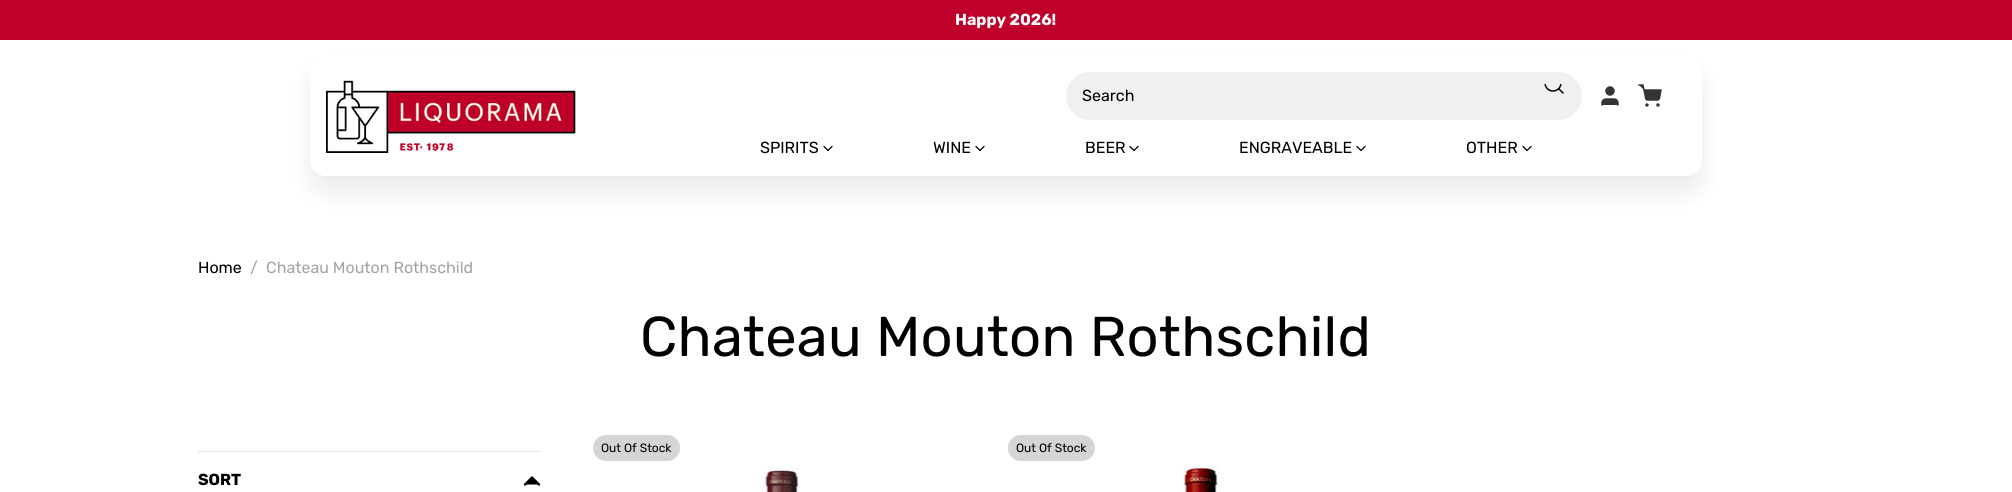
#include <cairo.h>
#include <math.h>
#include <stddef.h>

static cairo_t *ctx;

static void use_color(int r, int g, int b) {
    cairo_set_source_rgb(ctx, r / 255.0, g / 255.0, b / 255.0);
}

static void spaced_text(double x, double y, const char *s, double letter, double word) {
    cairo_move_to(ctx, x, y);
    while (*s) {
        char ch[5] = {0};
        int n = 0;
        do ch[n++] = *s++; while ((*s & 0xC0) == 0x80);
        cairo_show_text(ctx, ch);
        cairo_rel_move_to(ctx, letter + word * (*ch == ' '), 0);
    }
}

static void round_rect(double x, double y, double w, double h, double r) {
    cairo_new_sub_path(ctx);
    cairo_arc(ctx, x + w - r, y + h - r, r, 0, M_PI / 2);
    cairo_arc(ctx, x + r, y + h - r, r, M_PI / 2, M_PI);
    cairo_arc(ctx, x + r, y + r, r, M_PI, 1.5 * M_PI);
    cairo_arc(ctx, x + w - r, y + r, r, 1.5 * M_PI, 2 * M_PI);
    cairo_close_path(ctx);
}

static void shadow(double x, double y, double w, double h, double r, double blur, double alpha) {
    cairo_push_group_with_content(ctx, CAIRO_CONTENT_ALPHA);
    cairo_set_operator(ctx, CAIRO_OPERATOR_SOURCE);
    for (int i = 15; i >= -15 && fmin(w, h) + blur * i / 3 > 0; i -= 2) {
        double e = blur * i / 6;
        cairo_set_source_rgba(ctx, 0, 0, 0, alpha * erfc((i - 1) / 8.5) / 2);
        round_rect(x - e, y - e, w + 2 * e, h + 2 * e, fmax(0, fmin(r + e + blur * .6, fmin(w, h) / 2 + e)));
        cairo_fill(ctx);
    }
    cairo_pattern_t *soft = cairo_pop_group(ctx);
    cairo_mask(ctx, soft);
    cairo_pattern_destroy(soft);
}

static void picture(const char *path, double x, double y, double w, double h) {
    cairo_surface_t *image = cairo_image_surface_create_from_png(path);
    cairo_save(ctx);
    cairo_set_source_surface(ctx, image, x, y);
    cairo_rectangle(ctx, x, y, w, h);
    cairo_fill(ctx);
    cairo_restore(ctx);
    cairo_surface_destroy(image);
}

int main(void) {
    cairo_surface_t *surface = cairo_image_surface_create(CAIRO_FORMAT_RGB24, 2012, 492);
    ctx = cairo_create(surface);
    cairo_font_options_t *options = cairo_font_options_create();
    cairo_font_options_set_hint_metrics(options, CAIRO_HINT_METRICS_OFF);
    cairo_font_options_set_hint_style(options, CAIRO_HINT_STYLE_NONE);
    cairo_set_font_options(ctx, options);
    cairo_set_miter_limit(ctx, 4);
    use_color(255, 255, 255);
    cairo_paint(ctx);
    use_color(190, 0, 42);
    cairo_rectangle(ctx, 0, 0, 2012, 40);
    cairo_fill(ctx);
    cairo_select_font_face(ctx, "Rubik", CAIRO_FONT_SLANT_NORMAL, CAIRO_FONT_WEIGHT_BOLD);
    cairo_set_font_size(ctx, 16);
    use_color(255, 255, 255);
    cairo_move_to(ctx, 955, 25);
    cairo_show_text(ctx, "Happy 2026!");
    use_color(0, 0, 0);
    shadow(310, 72, 1392, 120, 16, 12, 0.08);
    use_color(255, 255, 255);
    round_rect(310, 56, 1392, 120, 16);
    cairo_fill(ctx);
    picture("img1.png", 326, 80, 250, 73);
    use_color(240, 240, 240);
    round_rect(1066, 72, 516, 48, 24);
    cairo_fill(ctx);
    cairo_select_font_face(ctx, "Rubik", CAIRO_FONT_SLANT_NORMAL, CAIRO_FONT_WEIGHT_NORMAL);
    use_color(0, 0, 0);
    cairo_move_to(ctx, 1082, 101);
    cairo_show_text(ctx, "Search");
    picture("img2.png", 1544, 84, 20, 10);
    picture("img3.png", 1601, 86, 18, 20);
    picture("img4.png", 1638, 84, 24, 23);
    cairo_move_to(ctx, 760, 153);
    cairo_show_text(ctx, "SPIRITS");
    cairo_new_path(ctx);
    cairo_move_to(ctx, 824, 146.5);
    cairo_line_to(ctx, 828, 150.5);
    cairo_line_to(ctx, 832, 146.5);
    cairo_set_line_width(ctx, 1.3);
    cairo_set_line_cap(ctx, CAIRO_LINE_CAP_ROUND);
    cairo_set_line_join(ctx, CAIRO_LINE_JOIN_ROUND);
    cairo_stroke(ctx);
    cairo_move_to(ctx, 933, 153);
    cairo_show_text(ctx, "WINE");
    cairo_new_path(ctx);
    cairo_move_to(ctx, 976, 146.5);
    cairo_line_to(ctx, 980, 150.5);
    cairo_line_to(ctx, 984, 146.5);
    cairo_stroke(ctx);
    cairo_move_to(ctx, 1085, 153);
    cairo_show_text(ctx, "BEER");
    cairo_new_path(ctx);
    cairo_move_to(ctx, 1130, 146.5);
    cairo_line_to(ctx, 1134, 150.5);
    cairo_line_to(ctx, 1138, 146.5);
    cairo_stroke(ctx);
    cairo_move_to(ctx, 1239, 153);
    cairo_show_text(ctx, "ENGRAVEABLE");
    cairo_new_path(ctx);
    cairo_move_to(ctx, 1357, 146.5);
    cairo_line_to(ctx, 1361, 150.5);
    cairo_line_to(ctx, 1365, 146.5);
    cairo_stroke(ctx);
    cairo_move_to(ctx, 1466, 153);
    cairo_show_text(ctx, "OTHER");
    cairo_new_path(ctx);
    cairo_move_to(ctx, 1523, 146.5);
    cairo_line_to(ctx, 1527, 150.5);
    cairo_line_to(ctx, 1531, 146.5);
    cairo_stroke(ctx);
    cairo_move_to(ctx, 198, 273);
    cairo_show_text(ctx, "Home");
    use_color(163, 163, 163);
    cairo_move_to(ctx, 250, 273);
    cairo_show_text(ctx, "/");
    cairo_move_to(ctx, 266, 273);
    cairo_show_text(ctx, "Chateau Mouton Rothschild");
    cairo_set_font_size(ctx, 56);
    use_color(0, 0, 0);
    spaced_text(640, 356, "Chateau Mouton Rothschild", 0.25, 0);
    use_color(213, 213, 213);
    round_rect(593, 435, 87, 26, 13);
    cairo_fill(ctx);
    cairo_set_font_size(ctx, 12);
    use_color(0, 0, 0);
    cairo_move_to(ctx, 601, 452);
    cairo_show_text(ctx, "Out Of Stock");
    picture("img5.png", 761, 467, 39, 25);
    use_color(213, 213, 213);
    round_rect(1008, 435, 87, 26, 13);
    cairo_fill(ctx);
    use_color(0, 0, 0);
    cairo_move_to(ctx, 1016, 452);
    cairo_show_text(ctx, "Out Of Stock");
    picture("img6.png", 1183, 467, 37, 25);
    use_color(230, 230, 230);
    cairo_rectangle(ctx, 198, 451, 342, 1);
    cairo_fill(ctx);
    cairo_select_font_face(ctx, "Rubik", CAIRO_FONT_SLANT_NORMAL, CAIRO_FONT_WEIGHT_BOLD);
    cairo_set_font_size(ctx, 16);
    use_color(0, 0, 0);
    cairo_move_to(ctx, 198, 485);
    cairo_show_text(ctx, "SORT");
    cairo_new_path(ctx);
    cairo_move_to(ctx, 539, 484.5);
    cairo_line_to(ctx, 532, 477.5);
    cairo_line_to(ctx, 525, 484.5);
    cairo_fill_preserve(ctx);
    cairo_set_line_width(ctx, 2.3);
    cairo_stroke(ctx);
    cairo_surface_write_to_png(surface, "result.png");
    cairo_font_options_destroy(options);
    cairo_destroy(ctx);
    cairo_surface_destroy(surface);
    return 0;
}
